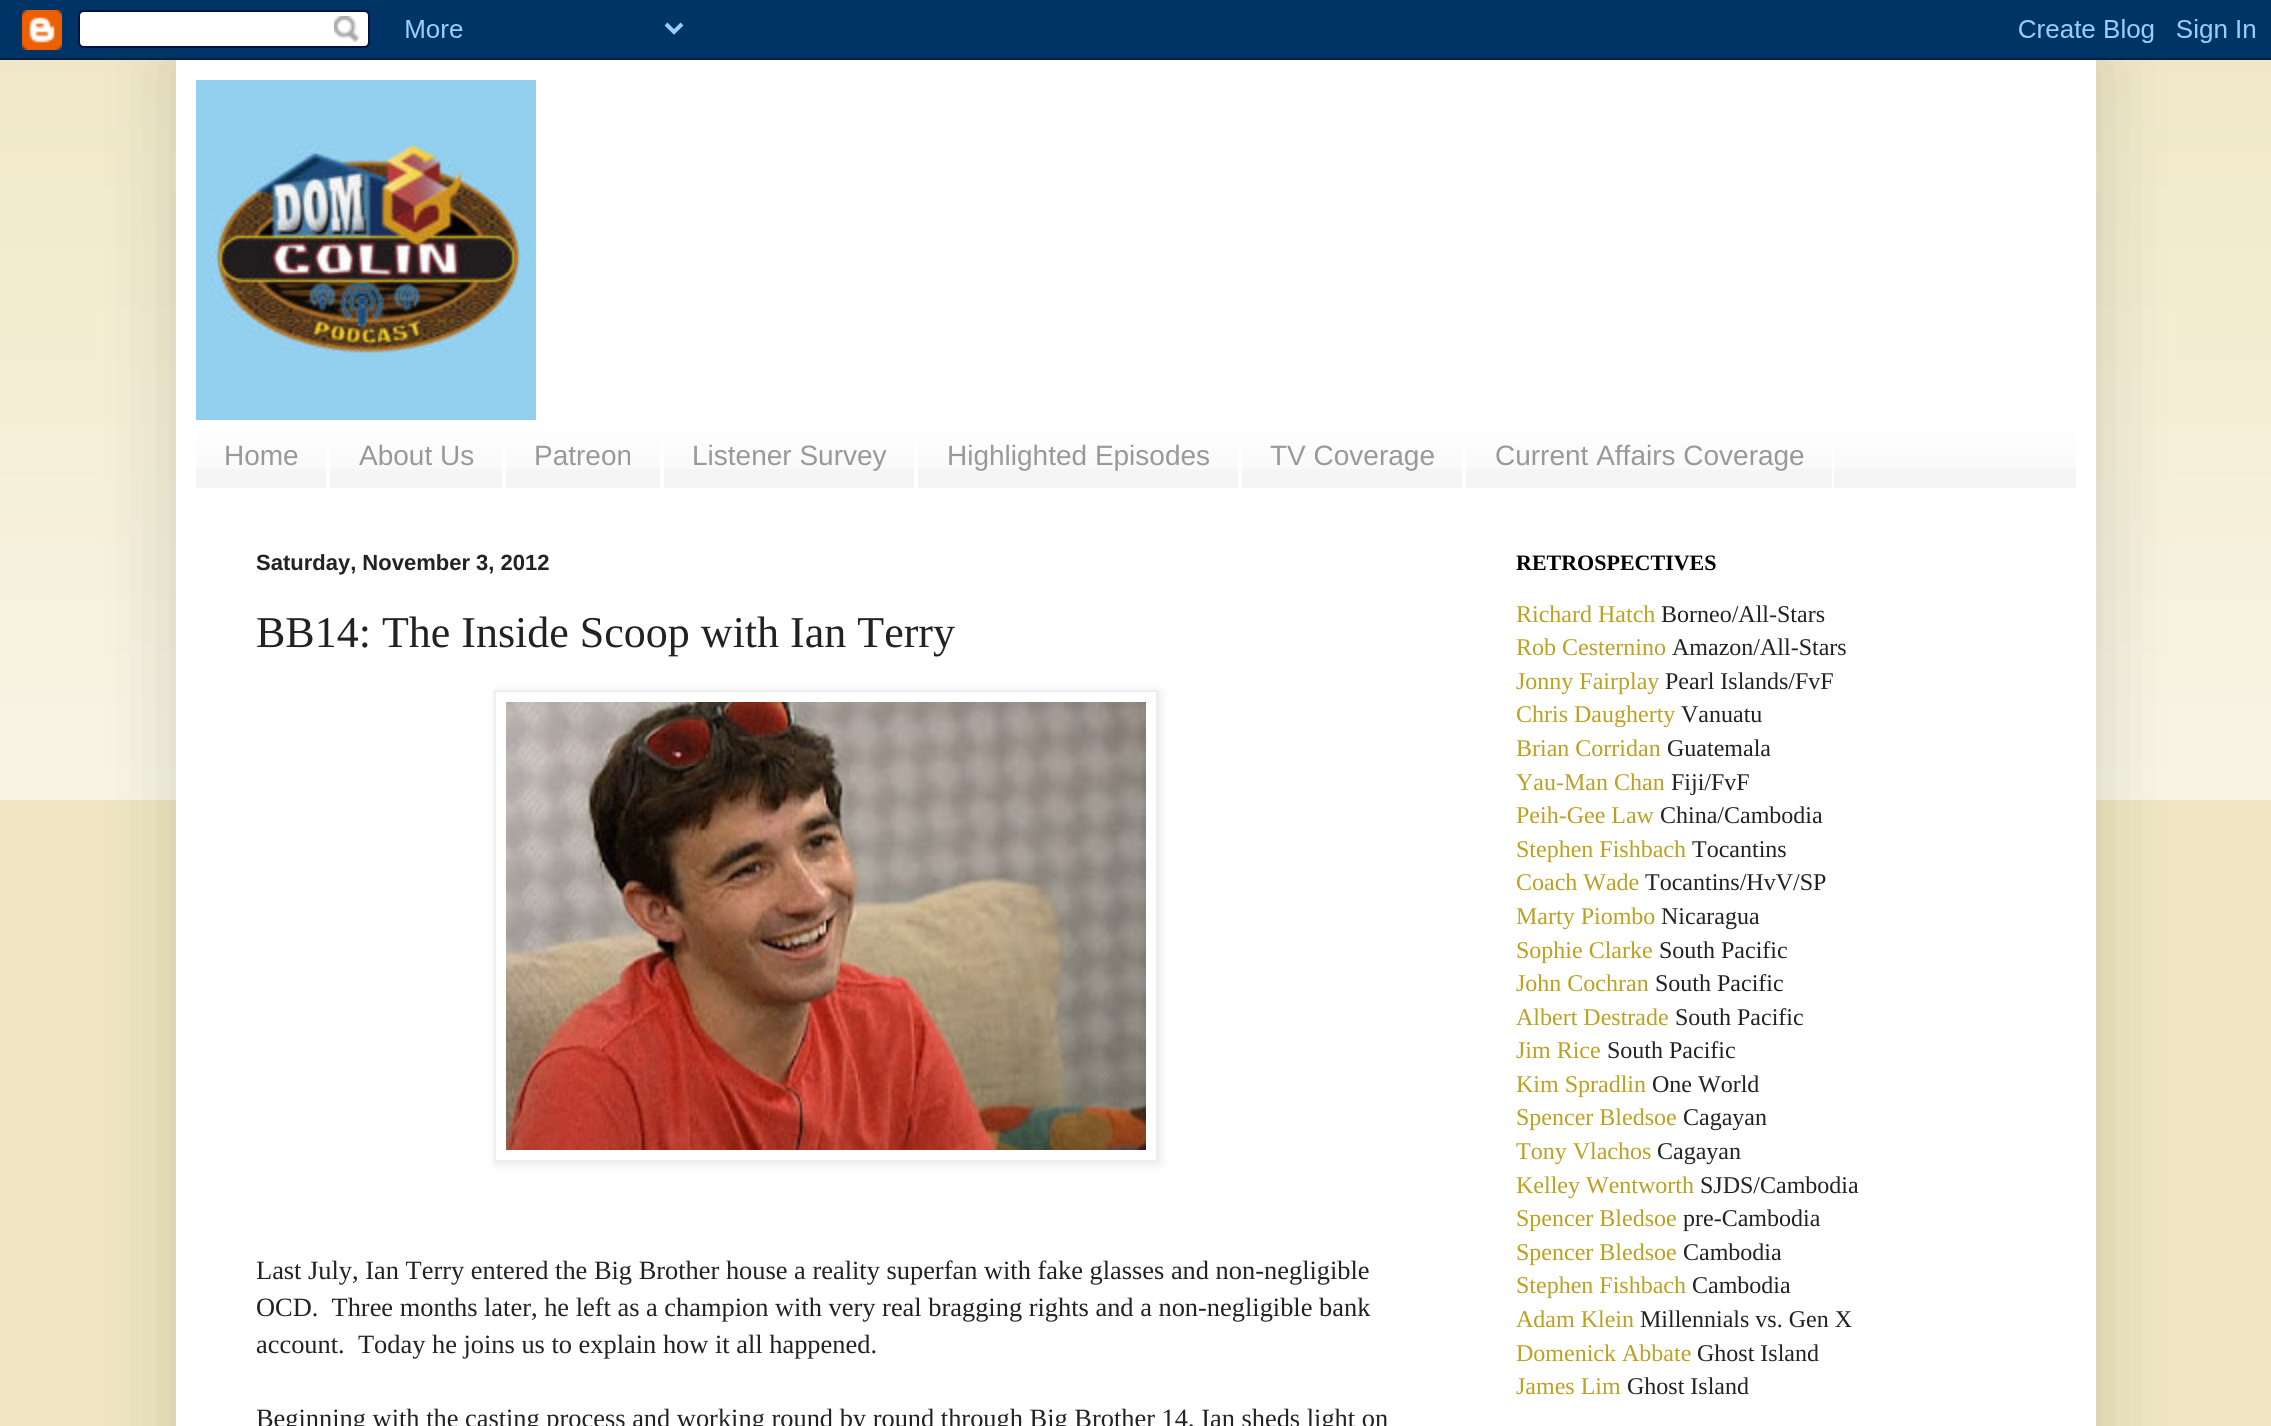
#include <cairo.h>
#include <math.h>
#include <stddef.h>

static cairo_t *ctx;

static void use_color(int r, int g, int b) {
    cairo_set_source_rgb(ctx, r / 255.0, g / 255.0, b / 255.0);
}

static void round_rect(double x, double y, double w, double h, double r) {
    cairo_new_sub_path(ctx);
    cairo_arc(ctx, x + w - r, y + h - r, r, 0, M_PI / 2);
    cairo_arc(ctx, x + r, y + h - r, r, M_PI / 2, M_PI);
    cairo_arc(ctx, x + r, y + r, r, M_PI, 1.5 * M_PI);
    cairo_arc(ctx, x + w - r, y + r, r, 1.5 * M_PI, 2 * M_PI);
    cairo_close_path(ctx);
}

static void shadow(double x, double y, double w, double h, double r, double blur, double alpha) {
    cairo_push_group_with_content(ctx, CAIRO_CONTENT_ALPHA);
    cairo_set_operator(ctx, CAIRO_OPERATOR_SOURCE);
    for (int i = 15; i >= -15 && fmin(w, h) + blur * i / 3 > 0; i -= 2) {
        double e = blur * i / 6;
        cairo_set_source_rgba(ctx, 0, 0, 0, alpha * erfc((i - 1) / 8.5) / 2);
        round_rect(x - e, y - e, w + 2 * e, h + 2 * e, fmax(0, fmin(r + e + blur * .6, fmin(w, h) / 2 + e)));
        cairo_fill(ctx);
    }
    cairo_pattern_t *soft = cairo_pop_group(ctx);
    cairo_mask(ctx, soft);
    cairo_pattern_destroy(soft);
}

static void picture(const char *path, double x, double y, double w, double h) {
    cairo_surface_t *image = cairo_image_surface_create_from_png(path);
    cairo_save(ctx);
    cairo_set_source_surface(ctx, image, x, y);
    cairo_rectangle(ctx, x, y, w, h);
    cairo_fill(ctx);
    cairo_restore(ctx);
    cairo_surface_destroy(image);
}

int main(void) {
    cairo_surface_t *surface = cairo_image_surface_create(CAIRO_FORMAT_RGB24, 2271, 1426);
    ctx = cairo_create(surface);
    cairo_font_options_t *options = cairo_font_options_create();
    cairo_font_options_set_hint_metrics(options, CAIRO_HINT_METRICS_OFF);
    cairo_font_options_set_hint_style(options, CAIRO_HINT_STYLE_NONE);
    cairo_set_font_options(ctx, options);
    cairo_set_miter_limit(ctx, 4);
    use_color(239, 230, 193);
    cairo_paint(ctx);
    picture("img2.png", 0, 60, 2271, 740);
    use_color(0, 0, 0);
    shadow(176, 60, 1920, 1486, 0, 40, 0.15);
    picture("img1.png", 0, 0, 2271, 60);
    use_color(255, 255, 255);
    cairo_rectangle(ctx, 176, 60, 1920, 1366);
    cairo_fill(ctx);
    picture("img3.png", 196, 80, 340, 340);
    use_color(245, 245, 245);
    cairo_rectangle(ctx, 196, 422, 1880, 66);
    cairo_fill(ctx);
    picture("img4.png", 196, 422, 1880, 47);
    use_color(255, 255, 255);
    cairo_rectangle(ctx, 326, 444, 4, 44);
    cairo_fill(ctx);
    cairo_select_font_face(ctx, "Liberation Sans", CAIRO_FONT_SLANT_NORMAL, CAIRO_FONT_WEIGHT_NORMAL);
    cairo_set_font_size(ctx, 28);
    use_color(153, 153, 153);
    cairo_move_to(ctx, 224, 465);
    cairo_show_text(ctx, "Home");
    use_color(255, 255, 255);
    cairo_rectangle(ctx, 502, 444, 4, 44);
    cairo_fill(ctx);
    use_color(153, 153, 153);
    cairo_move_to(ctx, 359, 465);
    cairo_show_text(ctx, "About Us");
    use_color(255, 255, 255);
    cairo_rectangle(ctx, 660, 444, 4, 44);
    cairo_fill(ctx);
    use_color(153, 153, 153);
    cairo_move_to(ctx, 534, 465);
    cairo_show_text(ctx, "Patreon");
    use_color(255, 255, 255);
    cairo_rectangle(ctx, 914, 444, 4, 44);
    cairo_fill(ctx);
    use_color(153, 153, 153);
    cairo_move_to(ctx, 692, 465);
    cairo_show_text(ctx, "Listener Survey");
    use_color(255, 255, 255);
    cairo_rectangle(ctx, 1238, 444, 4, 44);
    cairo_fill(ctx);
    use_color(153, 153, 153);
    cairo_move_to(ctx, 947, 465);
    cairo_show_text(ctx, "Highlighted Episodes");
    use_color(255, 255, 255);
    cairo_rectangle(ctx, 1462, 444, 4, 44);
    cairo_fill(ctx);
    use_color(153, 153, 153);
    cairo_move_to(ctx, 1270, 465);
    cairo_show_text(ctx, "TV Coverage");
    use_color(255, 255, 255);
    cairo_rectangle(ctx, 1832, 444, 2, 44);
    cairo_fill(ctx);
    use_color(153, 153, 153);
    cairo_move_to(ctx, 1495, 465);
    cairo_show_text(ctx, "Current Affairs Coverage");
    cairo_select_font_face(ctx, "Liberation Sans", CAIRO_FONT_SLANT_NORMAL, CAIRO_FONT_WEIGHT_BOLD);
    cairo_set_font_size(ctx, 22);
    use_color(34, 34, 34);
    cairo_move_to(ctx, 256, 570);
    cairo_show_text(ctx, "Saturday, November 3, 2012");
    cairo_select_font_face(ctx, "Liberation Serif", CAIRO_FONT_SLANT_NORMAL, CAIRO_FONT_WEIGHT_NORMAL);
    cairo_set_font_size(ctx, 44);
    cairo_move_to(ctx, 256, 647);
    cairo_show_text(ctx, "BB14: The Inside Scoop with Ian Terry");
    cairo_save(ctx);
    cairo_set_fill_rule(ctx, CAIRO_FILL_RULE_EVEN_ODD);
    cairo_new_path(ctx);
    cairo_move_to(ctx, 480, 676);
    cairo_line_to(ctx, 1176, 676);
    cairo_line_to(ctx, 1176, 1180);
    cairo_line_to(ctx, 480, 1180);
    cairo_close_path(ctx);
    cairo_move_to(ctx, 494, 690);
    cairo_line_to(ctx, 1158, 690);
    cairo_line_to(ctx, 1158, 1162);
    cairo_line_to(ctx, 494, 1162);
    cairo_close_path(ctx);
    cairo_clip(ctx);
    use_color(0, 0, 0);
    shadow(496, 692, 664, 472, 0, 5, 0.1);
    cairo_restore(ctx);
    cairo_rectangle(ctx, 495, 691, 662, 470);
    use_color(238, 238, 238);
    cairo_stroke(ctx);
    picture("img5.png", 506, 702, 640, 448);
    cairo_set_font_size(ctx, 26.4);
    use_color(34, 34, 34);
    cairo_move_to(ctx, 256, 1279);
    cairo_show_text(ctx, "Last July, Ian Terry entered the Big Brother house a reality superfan with fake glasses and non-negligible");
    cairo_move_to(ctx, 256, 1316);
    cairo_show_text(ctx, "OCD.  Three months later, he left as a champion with very real bragging rights and a non-negligible bank");
    cairo_move_to(ctx, 256, 1353);
    cairo_show_text(ctx, "account.  Today he joins us to explain how it all happened.");
    cairo_move_to(ctx, 256, 1427);
    cairo_show_text(ctx, "Beginning with the casting process and working round by round through Big Brother 14, Ian sheds light on");
    cairo_select_font_face(ctx, "Liberation Serif", CAIRO_FONT_SLANT_NORMAL, CAIRO_FONT_WEIGHT_BOLD);
    cairo_set_font_size(ctx, 22);
    use_color(0, 0, 0);
    cairo_move_to(ctx, 1516, 570);
    cairo_show_text(ctx, "RETROSPECTIVES");
    cairo_select_font_face(ctx, "Liberation Serif", CAIRO_FONT_SLANT_NORMAL, CAIRO_FONT_WEIGHT_NORMAL);
    cairo_set_font_size(ctx, 24);
    use_color(187, 160, 33);
    cairo_move_to(ctx, 1516, 622);
    cairo_show_text(ctx, "Richard Hatch");
    use_color(34, 34, 34);
    cairo_move_to(ctx, 1661, 622);
    cairo_show_text(ctx, "Borneo/All-Stars");
    use_color(187, 160, 33);
    cairo_move_to(ctx, 1516, 655);
    cairo_show_text(ctx, "Rob Cesternino");
    use_color(34, 34, 34);
    cairo_move_to(ctx, 1672, 655);
    cairo_show_text(ctx, "Amazon/All-Stars");
    use_color(187, 160, 33);
    cairo_move_to(ctx, 1516, 689);
    cairo_show_text(ctx, "Jonny Fairplay");
    use_color(34, 34, 34);
    cairo_move_to(ctx, 1665, 689);
    cairo_show_text(ctx, "Pearl Islands/FvF");
    use_color(187, 160, 33);
    cairo_move_to(ctx, 1516, 722);
    cairo_show_text(ctx, "Chris Daugherty");
    use_color(34, 34, 34);
    cairo_move_to(ctx, 1681, 722);
    cairo_show_text(ctx, "Vanuatu");
    use_color(187, 160, 33);
    cairo_move_to(ctx, 1516, 756);
    cairo_show_text(ctx, "Brian Corridan");
    use_color(34, 34, 34);
    cairo_move_to(ctx, 1667, 756);
    cairo_show_text(ctx, "Guatemala");
    use_color(187, 160, 33);
    cairo_move_to(ctx, 1516, 790);
    cairo_show_text(ctx, "Yau-Man Chan");
    use_color(34, 34, 34);
    cairo_move_to(ctx, 1671, 790);
    cairo_show_text(ctx, "Fiji/FvF");
    use_color(187, 160, 33);
    cairo_move_to(ctx, 1516, 823);
    cairo_show_text(ctx, "Peih-Gee Law");
    use_color(34, 34, 34);
    cairo_move_to(ctx, 1660, 823);
    cairo_show_text(ctx, "China/Cambodia");
    use_color(187, 160, 33);
    cairo_move_to(ctx, 1516, 857);
    cairo_show_text(ctx, "Stephen Fishbach");
    use_color(34, 34, 34);
    cairo_move_to(ctx, 1692, 857);
    cairo_show_text(ctx, "Tocantins");
    use_color(187, 160, 33);
    cairo_move_to(ctx, 1516, 890);
    cairo_show_text(ctx, "Coach Wade");
    use_color(34, 34, 34);
    cairo_move_to(ctx, 1645, 890);
    cairo_show_text(ctx, "Tocantins/HvV/SP");
    use_color(187, 160, 33);
    cairo_move_to(ctx, 1516, 924);
    cairo_show_text(ctx, "Marty Piombo");
    use_color(34, 34, 34);
    cairo_move_to(ctx, 1661, 924);
    cairo_show_text(ctx, "Nicaragua");
    use_color(187, 160, 33);
    cairo_move_to(ctx, 1516, 958);
    cairo_show_text(ctx, "Sophie Clarke");
    use_color(34, 34, 34);
    cairo_move_to(ctx, 1659, 958);
    cairo_show_text(ctx, "South Pacific");
    use_color(187, 160, 33);
    cairo_move_to(ctx, 1516, 991);
    cairo_show_text(ctx, "John Cochran");
    use_color(34, 34, 34);
    cairo_move_to(ctx, 1655, 991);
    cairo_show_text(ctx, "South Pacific");
    use_color(187, 160, 33);
    cairo_move_to(ctx, 1516, 1025);
    cairo_show_text(ctx, "Albert Destrade");
    use_color(34, 34, 34);
    cairo_move_to(ctx, 1675, 1025);
    cairo_show_text(ctx, "South Pacific");
    use_color(187, 160, 33);
    cairo_move_to(ctx, 1516, 1058);
    cairo_show_text(ctx, "Jim Rice");
    use_color(34, 34, 34);
    cairo_move_to(ctx, 1607, 1058);
    cairo_show_text(ctx, "South Pacific");
    use_color(187, 160, 33);
    cairo_move_to(ctx, 1516, 1092);
    cairo_show_text(ctx, "Kim Spradlin");
    use_color(34, 34, 34);
    cairo_move_to(ctx, 1652, 1092);
    cairo_show_text(ctx, "One World");
    use_color(187, 160, 33);
    cairo_move_to(ctx, 1516, 1125);
    cairo_show_text(ctx, "Spencer Bledsoe");
    use_color(34, 34, 34);
    cairo_move_to(ctx, 1683, 1125);
    cairo_show_text(ctx, "Cagayan");
    use_color(187, 160, 33);
    cairo_move_to(ctx, 1516, 1159);
    cairo_show_text(ctx, "Tony Vlachos");
    use_color(34, 34, 34);
    cairo_move_to(ctx, 1657, 1159);
    cairo_show_text(ctx, "Cagayan");
    use_color(187, 160, 33);
    cairo_move_to(ctx, 1516, 1193);
    cairo_show_text(ctx, "Kelley Wentworth");
    use_color(34, 34, 34);
    cairo_move_to(ctx, 1700, 1193);
    cairo_show_text(ctx, "SJDS/Cambodia");
    use_color(187, 160, 33);
    cairo_move_to(ctx, 1516, 1226);
    cairo_show_text(ctx, "Spencer Bledsoe");
    use_color(34, 34, 34);
    cairo_move_to(ctx, 1683, 1226);
    cairo_show_text(ctx, "pre-Cambodia");
    use_color(187, 160, 33);
    cairo_move_to(ctx, 1516, 1260);
    cairo_show_text(ctx, "Spencer Bledsoe");
    use_color(34, 34, 34);
    cairo_move_to(ctx, 1683, 1260);
    cairo_show_text(ctx, "Cambodia");
    use_color(187, 160, 33);
    cairo_move_to(ctx, 1516, 1293);
    cairo_show_text(ctx, "Stephen Fishbach");
    use_color(34, 34, 34);
    cairo_move_to(ctx, 1692, 1293);
    cairo_show_text(ctx, "Cambodia");
    use_color(187, 160, 33);
    cairo_move_to(ctx, 1516, 1327);
    cairo_show_text(ctx, "Adam Klein");
    use_color(34, 34, 34);
    cairo_move_to(ctx, 1640, 1327);
    cairo_show_text(ctx, "Millennials vs. Gen X");
    use_color(187, 160, 33);
    cairo_move_to(ctx, 1516, 1361);
    cairo_show_text(ctx, "Domenick Abbate");
    use_color(34, 34, 34);
    cairo_move_to(ctx, 1697, 1361);
    cairo_show_text(ctx, "Ghost Island");
    use_color(187, 160, 33);
    cairo_move_to(ctx, 1516, 1394);
    cairo_show_text(ctx, "James Lim");
    use_color(34, 34, 34);
    cairo_move_to(ctx, 1627, 1394);
    cairo_show_text(ctx, "Ghost Island");
    cairo_surface_write_to_png(surface, "result.png");
    cairo_font_options_destroy(options);
    cairo_destroy(ctx);
    cairo_surface_destroy(surface);
    return 0;
}
